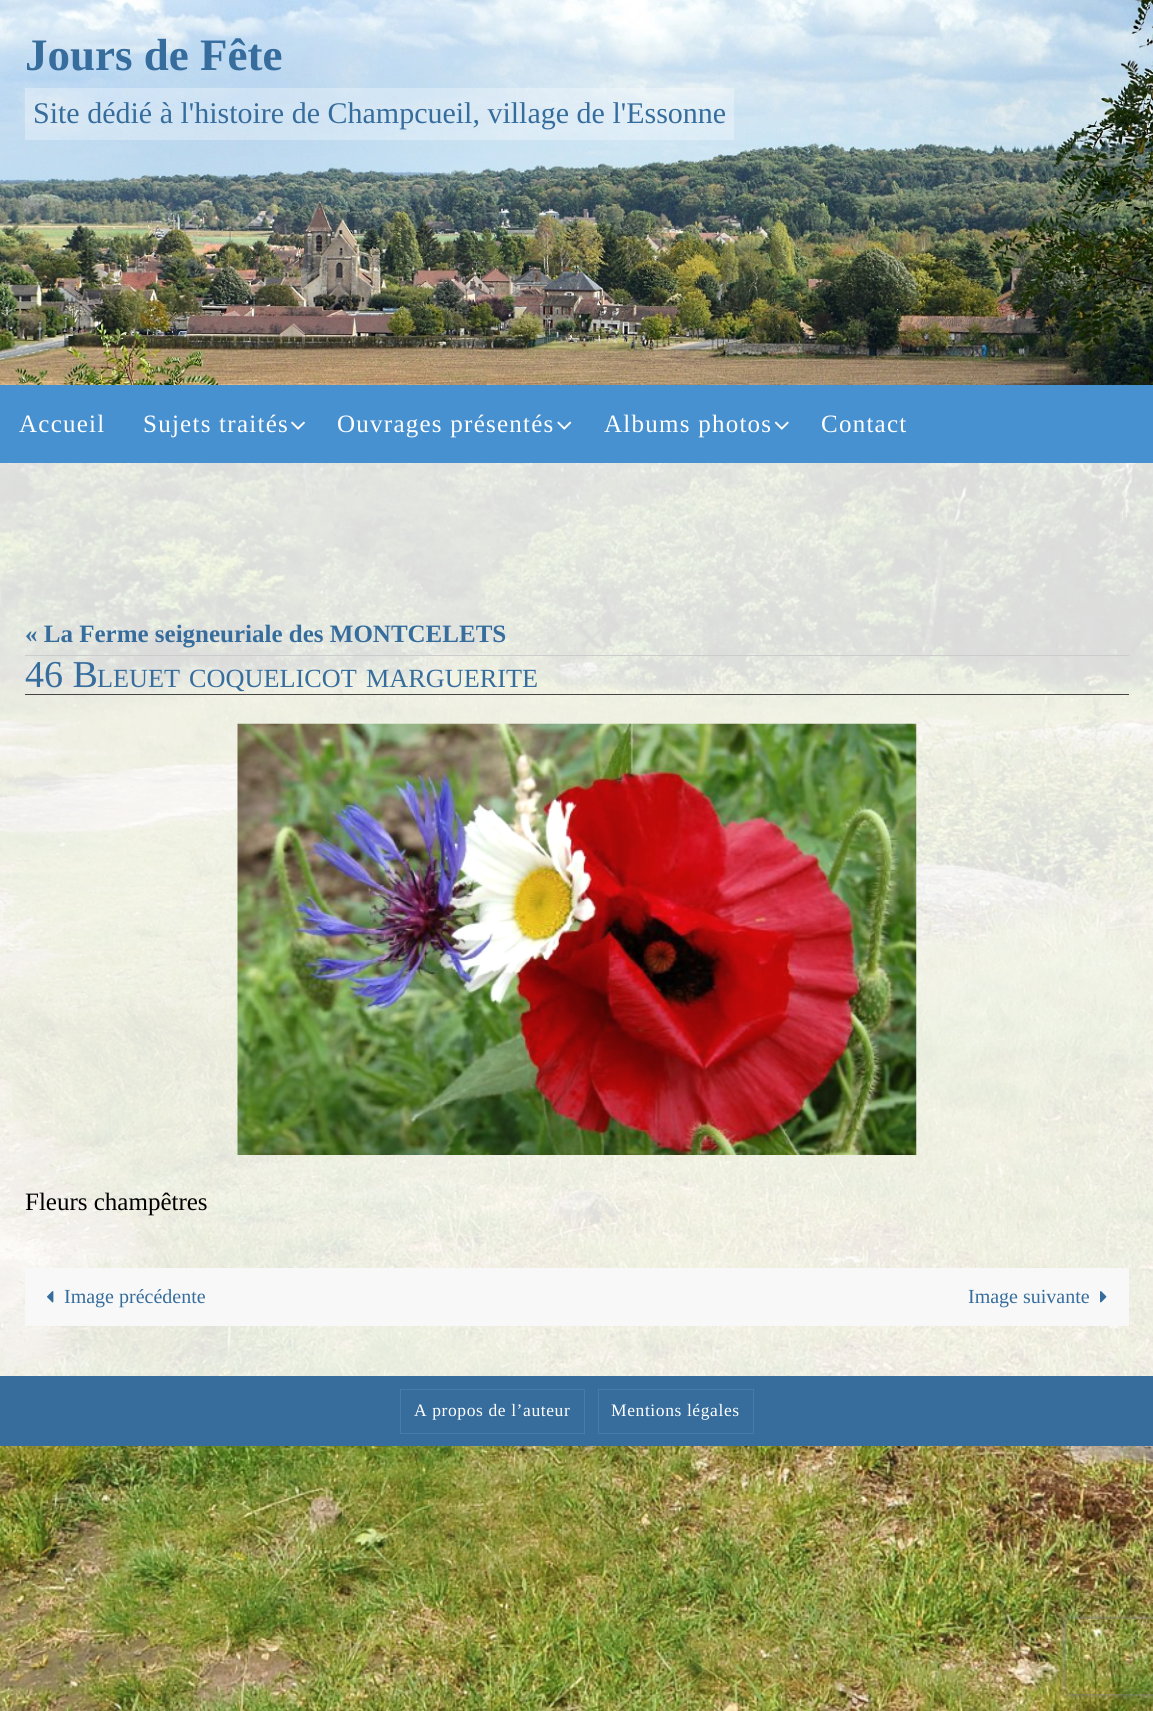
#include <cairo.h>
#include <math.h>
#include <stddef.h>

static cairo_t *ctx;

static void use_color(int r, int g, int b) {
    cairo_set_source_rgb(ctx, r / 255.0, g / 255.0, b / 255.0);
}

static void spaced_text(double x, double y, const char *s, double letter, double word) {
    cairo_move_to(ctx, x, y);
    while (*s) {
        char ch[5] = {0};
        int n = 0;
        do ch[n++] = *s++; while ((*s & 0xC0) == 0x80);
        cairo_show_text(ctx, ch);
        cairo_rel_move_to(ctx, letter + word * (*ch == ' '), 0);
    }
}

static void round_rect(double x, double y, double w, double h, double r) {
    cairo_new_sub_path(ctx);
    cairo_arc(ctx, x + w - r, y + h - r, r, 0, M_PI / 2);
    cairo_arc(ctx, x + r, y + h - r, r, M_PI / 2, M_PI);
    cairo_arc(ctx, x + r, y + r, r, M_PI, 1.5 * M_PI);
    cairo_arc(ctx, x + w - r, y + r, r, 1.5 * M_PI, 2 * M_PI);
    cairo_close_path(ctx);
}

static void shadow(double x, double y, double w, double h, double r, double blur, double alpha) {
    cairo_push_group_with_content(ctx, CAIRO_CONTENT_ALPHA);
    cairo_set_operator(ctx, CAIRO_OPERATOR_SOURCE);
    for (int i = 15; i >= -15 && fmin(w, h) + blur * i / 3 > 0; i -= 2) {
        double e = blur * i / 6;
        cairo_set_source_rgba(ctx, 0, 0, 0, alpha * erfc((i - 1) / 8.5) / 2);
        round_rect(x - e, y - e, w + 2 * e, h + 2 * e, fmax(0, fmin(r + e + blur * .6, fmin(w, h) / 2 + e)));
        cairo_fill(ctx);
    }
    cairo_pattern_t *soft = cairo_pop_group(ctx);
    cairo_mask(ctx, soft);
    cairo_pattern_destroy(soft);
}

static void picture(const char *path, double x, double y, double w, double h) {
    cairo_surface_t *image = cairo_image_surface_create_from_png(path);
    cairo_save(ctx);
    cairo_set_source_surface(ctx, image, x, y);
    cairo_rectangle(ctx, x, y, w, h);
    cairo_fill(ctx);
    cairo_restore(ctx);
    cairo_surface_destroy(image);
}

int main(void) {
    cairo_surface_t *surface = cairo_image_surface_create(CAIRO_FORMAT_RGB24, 1153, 1711);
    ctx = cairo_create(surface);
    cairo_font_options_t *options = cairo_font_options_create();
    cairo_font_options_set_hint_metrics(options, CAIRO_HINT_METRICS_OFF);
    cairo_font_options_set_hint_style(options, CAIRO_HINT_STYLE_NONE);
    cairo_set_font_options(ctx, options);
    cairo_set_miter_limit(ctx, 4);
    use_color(255, 255, 255);
    cairo_paint(ctx);
    picture("img1.png", 0, 463, 1153, 1248);
    picture("img2.png", 0, 0, 1153, 385);
    cairo_select_font_face(ctx, "Liberation Serif", CAIRO_FONT_SLANT_NORMAL, CAIRO_FONT_WEIGHT_BOLD);
    cairo_set_font_size(ctx, 45);
    use_color(54, 109, 157);
    cairo_move_to(ctx, 25, 70);
    cairo_show_text(ctx, "Jours de Fête");
    cairo_set_source_rgba(ctx, 1, 1, 1, 0.3);
    cairo_rectangle(ctx, 25, 88, 709, 52);
    cairo_fill(ctx);
    cairo_select_font_face(ctx, "Liberation Serif", CAIRO_FONT_SLANT_NORMAL, CAIRO_FONT_WEIGHT_NORMAL);
    cairo_set_font_size(ctx, 30);
    use_color(54, 109, 157);
    cairo_move_to(ctx, 33, 123);
    cairo_show_text(ctx, "Site dédié à l'histoire de Champcueil, village de l'Essonne");
    use_color(71, 145, 209);
    cairo_rectangle(ctx, 0, 385, 1153, 78);
    cairo_fill(ctx);
    cairo_set_font_size(ctx, 25);
    use_color(255, 255, 255);
    spaced_text(19, 432, "Accueil", 1.25, 0);
    spaced_text(143, 432, "Sujets traités", 1.25, 0);
    picture("img3.png", 291, 421, 14, 9);
    spaced_text(337, 432, "Ouvrages présentés", 1.25, 0);
    picture("img4.png", 557, 421, 15, 9);
    spaced_text(604, 432, "Albums photos", 1.25, 0);
    picture("img5.png", 774, 421, 15, 9);
    spaced_text(821, 432, "Contact", 1.25, 0);
    cairo_set_source_rgba(ctx, 1, 1, 1, 0.85);
    cairo_rectangle(ctx, 0, 463, 1153, 913);
    cairo_fill(ctx);
    use_color(204, 204, 204);
    cairo_rectangle(ctx, 25, 655, 1104, 1);
    cairo_fill(ctx);
    cairo_select_font_face(ctx, "Liberation Serif", CAIRO_FONT_SLANT_NORMAL, CAIRO_FONT_WEIGHT_BOLD);
    use_color(54, 109, 157);
    cairo_move_to(ctx, 25, 642);
    cairo_show_text(ctx, "« La Ferme seigneuriale des MONTCELETS");
    use_color(68, 68, 68);
    cairo_rectangle(ctx, 25, 694, 1104, 1);
    cairo_fill(ctx);
    cairo_select_font_face(ctx, "Liberation Serif", CAIRO_FONT_SLANT_NORMAL, CAIRO_FONT_WEIGHT_NORMAL);
    cairo_set_font_size(ctx, 38);
    use_color(54, 109, 157);
    cairo_move_to(ctx, 25, 687);
    cairo_show_text(ctx, "46 B");
    cairo_set_font_size(ctx, 26.25);
    cairo_move_to(ctx, 97, 687);
    cairo_show_text(ctx, "LEUET");
    cairo_move_to(ctx, 189, 687);
    cairo_show_text(ctx, "COQUELICOT");
    cairo_move_to(ctx, 366, 687);
    cairo_show_text(ctx, "MARGUERITE");
    picture("img6.png", 237, 723, 680, 432);
    cairo_set_font_size(ctx, 25);
    use_color(0, 0, 0);
    cairo_move_to(ctx, 25, 1210);
    cairo_show_text(ctx, "Fleurs champêtres");
    use_color(248, 248, 248);
    cairo_rectangle(ctx, 25, 1268, 1104, 58);
    cairo_fill(ctx);
    picture("img7.png", 47, 1291, 7, 12);
    cairo_set_font_size(ctx, 20);
    use_color(54, 109, 157);
    cairo_move_to(ctx, 64, 1303);
    cairo_show_text(ctx, "Image précédente");
    cairo_move_to(ctx, 968, 1303);
    cairo_show_text(ctx, "Image suivante");
    picture("img8.png", 1100, 1291, 7, 12);
    cairo_rectangle(ctx, 0, 1376, 1153, 70);
    cairo_fill(ctx);
    cairo_rectangle(ctx, 400.5, 1389.5, 184, 44);
    use_color(69, 124, 172);
    cairo_set_line_width(ctx, 1);
    cairo_stroke(ctx);
    cairo_set_font_size(ctx, 17.5);
    use_color(255, 255, 255);
    spaced_text(414, 1416, "A propos de l’auteur", 0.6, 0);
    cairo_rectangle(ctx, 598.5, 1389.5, 155, 44);
    use_color(69, 124, 172);
    cairo_stroke(ctx);
    use_color(255, 255, 255);
    spaced_text(611, 1416, "Mentions légales", 0.6, 0);
    cairo_save(ctx);
    cairo_set_fill_rule(ctx, CAIRO_FILL_RULE_EVEN_ODD);
    cairo_new_path(ctx);
    cairo_move_to(ctx, 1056, 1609);
    cairo_line_to(ctx, 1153, 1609);
    cairo_line_to(ctx, 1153, 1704);
    cairo_line_to(ctx, 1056, 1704);
    cairo_close_path(ctx);
    cairo_move_to(ctx, 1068.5, 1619);
    cairo_line_to(ctx, 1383.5, 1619);
    cairo_curve_to(ctx, 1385, 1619, 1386, 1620, 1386, 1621.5);
    cairo_line_to(ctx, 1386, 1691.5);
    cairo_curve_to(ctx, 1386, 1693, 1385, 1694, 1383.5, 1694);
    cairo_line_to(ctx, 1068.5, 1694);
    cairo_curve_to(ctx, 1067, 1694, 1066, 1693, 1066, 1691.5);
    cairo_line_to(ctx, 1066, 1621.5);
    cairo_curve_to(ctx, 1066, 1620, 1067, 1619, 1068.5, 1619);
    cairo_close_path(ctx);
    cairo_clip(ctx);
    use_color(128, 128, 128);
    shadow(1066, 1619, 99, 75, 2.5, 3, 1);
    cairo_restore(ctx);
    cairo_surface_write_to_png(surface, "result.png");
    cairo_font_options_destroy(options);
    cairo_destroy(ctx);
    cairo_surface_destroy(surface);
    return 0;
}
